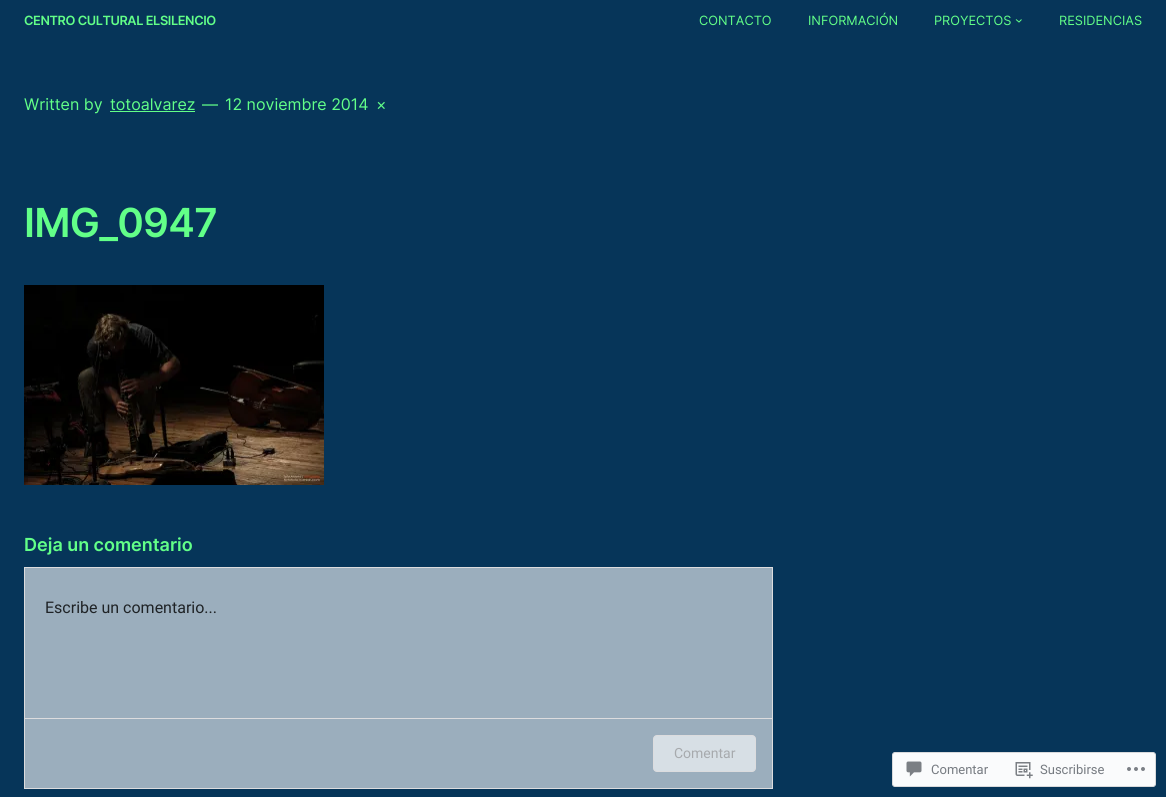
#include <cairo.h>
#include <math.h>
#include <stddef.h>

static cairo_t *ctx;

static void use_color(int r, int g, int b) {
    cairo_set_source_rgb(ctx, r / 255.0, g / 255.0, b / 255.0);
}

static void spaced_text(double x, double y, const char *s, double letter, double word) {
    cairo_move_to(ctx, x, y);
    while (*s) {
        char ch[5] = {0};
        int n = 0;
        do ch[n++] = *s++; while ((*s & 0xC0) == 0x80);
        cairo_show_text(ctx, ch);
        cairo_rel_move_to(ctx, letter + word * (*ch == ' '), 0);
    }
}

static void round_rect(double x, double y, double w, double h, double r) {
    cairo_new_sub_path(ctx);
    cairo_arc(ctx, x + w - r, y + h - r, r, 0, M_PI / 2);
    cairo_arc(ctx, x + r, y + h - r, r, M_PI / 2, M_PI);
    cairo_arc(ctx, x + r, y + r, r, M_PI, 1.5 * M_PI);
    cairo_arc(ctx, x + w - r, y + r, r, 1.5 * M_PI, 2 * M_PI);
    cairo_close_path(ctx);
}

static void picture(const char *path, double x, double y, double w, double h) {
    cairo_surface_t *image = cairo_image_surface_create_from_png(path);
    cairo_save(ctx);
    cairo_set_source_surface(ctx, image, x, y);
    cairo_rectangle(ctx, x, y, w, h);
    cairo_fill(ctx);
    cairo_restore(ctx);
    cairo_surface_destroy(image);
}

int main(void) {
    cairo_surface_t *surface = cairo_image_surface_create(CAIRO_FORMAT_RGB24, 1166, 797);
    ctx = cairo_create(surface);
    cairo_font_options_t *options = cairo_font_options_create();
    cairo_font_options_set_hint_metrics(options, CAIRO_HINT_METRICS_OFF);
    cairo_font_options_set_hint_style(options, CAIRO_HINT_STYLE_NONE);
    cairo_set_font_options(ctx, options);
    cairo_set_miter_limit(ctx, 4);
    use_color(6, 53, 89);
    cairo_paint(ctx);
    cairo_select_font_face(ctx, "Inter SemiBold", CAIRO_FONT_SLANT_NORMAL, CAIRO_FONT_WEIGHT_NORMAL);
    cairo_set_font_size(ctx, 12.75);
    use_color(98, 255, 136);
    spaced_text(24, 25, "CENTRO CULTURAL ELSILENCIO", -0.4, 0);
    cairo_select_font_face(ctx, "Inter", CAIRO_FONT_SLANT_NORMAL, CAIRO_FONT_WEIGHT_NORMAL);
    cairo_move_to(ctx, 699, 25);
    cairo_show_text(ctx, "CONTACTO");
    cairo_move_to(ctx, 808, 25);
    cairo_show_text(ctx, "INFORMACIÓN");
    cairo_move_to(ctx, 934, 25);
    cairo_show_text(ctx, "PROYECTOS");
    cairo_new_path(ctx);
    cairo_move_to(ctx, 1016, 19.5);
    cairo_line_to(ctx, 1019, 22);
    cairo_line_to(ctx, 1021.5, 19.5);
    cairo_set_line_width(ctx, 1);
    cairo_stroke(ctx);
    cairo_move_to(ctx, 1059, 25);
    cairo_show_text(ctx, "RESIDENCIAS");
    cairo_set_font_size(ctx, 16);
    cairo_move_to(ctx, 24, 110);
    cairo_show_text(ctx, "Written by");
    cairo_move_to(ctx, 110, 110);
    cairo_show_text(ctx, "totoalvarez");
    cairo_rectangle(ctx, 110, 111, 85, 1);
    cairo_fill(ctx);
    cairo_move_to(ctx, 202, 110);
    cairo_show_text(ctx, "—");
    cairo_move_to(ctx, 225, 110);
    cairo_show_text(ctx, "12 noviembre 2014");
    cairo_move_to(ctx, 376, 110);
    cairo_show_text(ctx, "×");
    cairo_select_font_face(ctx, "Inter SemiBold", CAIRO_FONT_SLANT_NORMAL, CAIRO_FONT_WEIGHT_NORMAL);
    cairo_set_font_size(ctx, 40);
    spaced_text(24, 237, "IMG_0947", -0.75, 0);
    picture("img1.png", 24, 285, 300, 200);
    cairo_set_font_size(ctx, 18);
    cairo_move_to(ctx, 24, 551);
    cairo_show_text(ctx, "Deja un comentario");
    use_color(155, 174, 189);
    cairo_rectangle(ctx, 24.5, 567.5, 748, 221);
    cairo_fill_preserve(ctx);
    use_color(220, 220, 222);
    cairo_stroke(ctx);
    cairo_select_font_face(ctx, "Roboto", CAIRO_FONT_SLANT_NORMAL, CAIRO_FONT_WEIGHT_NORMAL);
    cairo_set_font_size(ctx, 16);
    use_color(31, 35, 38);
    cairo_move_to(ctx, 45, 613);
    cairo_show_text(ctx, "Escribe un comentario...");
    use_color(220, 220, 222);
    cairo_rectangle(ctx, 25, 718, 747, 1);
    cairo_fill(ctx);
    use_color(215, 223, 229);
    round_rect(653.5, 735.5, 102, 36, 3.5);
    cairo_fill_preserve(ctx);
    use_color(220, 220, 222);
    cairo_stroke(ctx);
    cairo_set_font_size(ctx, 14);
    use_color(167, 170, 173);
    cairo_move_to(ctx, 674, 758);
    cairo_show_text(ctx, "Comentar");
    use_color(250, 251, 252);
    round_rect(892.5, 752.5, 263, 34, 2.5);
    cairo_fill_preserve(ctx);
    use_color(216, 217, 219);
    cairo_stroke(ctx);
    picture("img2.png", 906, 761, 16, 16);
    cairo_set_font_size(ctx, 13);
    use_color(118, 123, 129);
    cairo_move_to(ctx, 931, 774);
    cairo_show_text(ctx, "Comentar");
    picture("img3.png", 1015, 762, 18, 17);
    cairo_move_to(ctx, 1040, 774);
    cairo_show_text(ctx, "Suscribirse");
    picture("img4.png", 1127, 767, 18, 4);
    cairo_surface_write_to_png(surface, "result.png");
    cairo_font_options_destroy(options);
    cairo_destroy(ctx);
    cairo_surface_destroy(surface);
    return 0;
}
